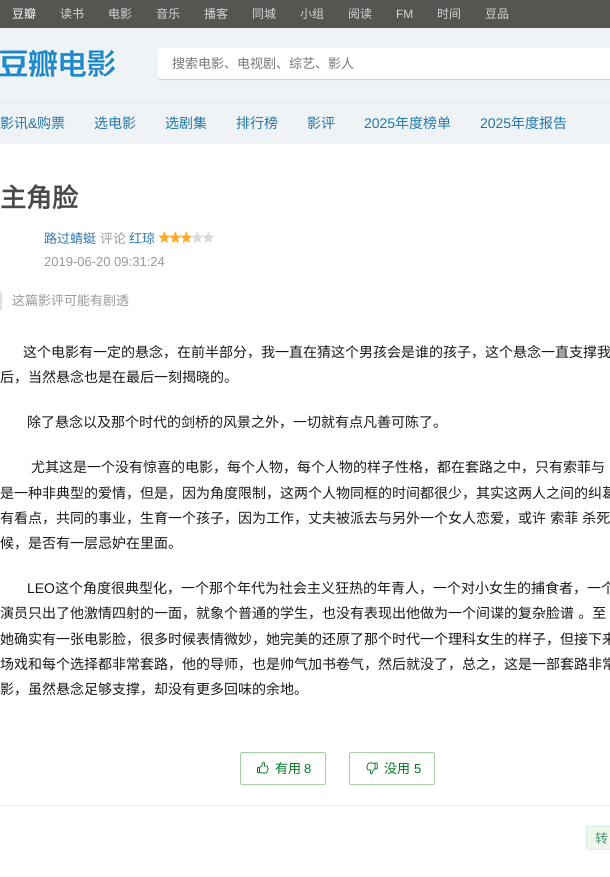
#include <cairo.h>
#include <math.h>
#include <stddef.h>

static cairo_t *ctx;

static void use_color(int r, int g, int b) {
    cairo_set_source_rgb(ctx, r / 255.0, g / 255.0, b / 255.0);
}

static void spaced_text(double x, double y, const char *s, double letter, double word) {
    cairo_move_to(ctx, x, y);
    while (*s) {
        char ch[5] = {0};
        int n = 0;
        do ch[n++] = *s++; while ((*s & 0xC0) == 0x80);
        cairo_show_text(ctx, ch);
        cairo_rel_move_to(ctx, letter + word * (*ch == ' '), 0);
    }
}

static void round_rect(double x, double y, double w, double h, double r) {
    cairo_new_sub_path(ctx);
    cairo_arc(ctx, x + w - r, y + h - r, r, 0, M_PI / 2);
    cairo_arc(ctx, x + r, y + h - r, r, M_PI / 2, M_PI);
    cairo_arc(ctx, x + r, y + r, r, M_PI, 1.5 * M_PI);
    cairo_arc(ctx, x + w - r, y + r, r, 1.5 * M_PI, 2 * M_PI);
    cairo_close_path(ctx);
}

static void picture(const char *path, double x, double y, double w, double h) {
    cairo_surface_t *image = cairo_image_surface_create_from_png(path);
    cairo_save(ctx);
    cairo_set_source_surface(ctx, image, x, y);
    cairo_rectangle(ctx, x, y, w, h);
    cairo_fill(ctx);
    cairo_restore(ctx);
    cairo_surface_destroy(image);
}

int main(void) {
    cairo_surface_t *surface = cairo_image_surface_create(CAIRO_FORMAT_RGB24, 610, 877);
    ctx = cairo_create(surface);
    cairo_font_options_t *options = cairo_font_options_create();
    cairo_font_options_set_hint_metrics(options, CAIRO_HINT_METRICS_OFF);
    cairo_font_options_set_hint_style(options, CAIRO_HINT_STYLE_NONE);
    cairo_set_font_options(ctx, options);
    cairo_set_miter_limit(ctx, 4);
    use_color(255, 255, 255);
    cairo_paint(ctx);
    use_color(84, 86, 82);
    cairo_rectangle(ctx, 0, 0, 610, 28);
    cairo_fill(ctx);
    cairo_select_font_face(ctx, "Noto Sans CJK SC", CAIRO_FONT_SLANT_NORMAL, CAIRO_FONT_WEIGHT_NORMAL);
    cairo_set_font_size(ctx, 12);
    use_color(255, 255, 255);
    cairo_move_to(ctx, 12, 18);
    cairo_show_text(ctx, "豆瓣");
    use_color(213, 213, 213);
    cairo_move_to(ctx, 60, 18);
    cairo_show_text(ctx, "读书");
    cairo_move_to(ctx, 108, 18);
    cairo_show_text(ctx, "电影");
    cairo_move_to(ctx, 156, 18);
    cairo_show_text(ctx, "音乐");
    cairo_move_to(ctx, 204, 18);
    cairo_show_text(ctx, "播客");
    cairo_move_to(ctx, 252, 18);
    cairo_show_text(ctx, "同城");
    cairo_move_to(ctx, 300, 18);
    cairo_show_text(ctx, "小组");
    cairo_move_to(ctx, 348, 18);
    cairo_show_text(ctx, "阅读");
    cairo_select_font_face(ctx, "Liberation Sans", CAIRO_FONT_SLANT_NORMAL, CAIRO_FONT_WEIGHT_NORMAL);
    cairo_move_to(ctx, 396, 18);
    cairo_show_text(ctx, "FM");
    cairo_select_font_face(ctx, "Noto Sans CJK SC", CAIRO_FONT_SLANT_NORMAL, CAIRO_FONT_WEIGHT_NORMAL);
    cairo_move_to(ctx, 437, 18);
    cairo_show_text(ctx, "时间");
    cairo_move_to(ctx, 485, 18);
    cairo_show_text(ctx, "豆品");
    use_color(240, 243, 245);
    cairo_rectangle(ctx, 0, 28, 610, 116);
    cairo_fill(ctx);
    use_color(227, 235, 236);
    cairo_rectangle(ctx, 0, 102, 610, 1);
    cairo_fill(ctx);
    picture("img1.png", 0, 50, 115, 27);
    picture("img2.png", 158, 48, 452, 33);
    cairo_set_font_size(ctx, 13);
    use_color(117, 117, 117);
    cairo_move_to(ctx, 172, 68);
    cairo_show_text(ctx, "搜索电影、电视剧、综艺、影人");
    cairo_set_font_size(ctx, 14);
    use_color(34, 119, 170);
    cairo_move_to(ctx, 0, 128);
    cairo_show_text(ctx, "影讯");
    cairo_select_font_face(ctx, "Liberation Sans", CAIRO_FONT_SLANT_NORMAL, CAIRO_FONT_WEIGHT_NORMAL);
    cairo_move_to(ctx, 28, 128);
    cairo_show_text(ctx, "&");
    cairo_select_font_face(ctx, "Noto Sans CJK SC", CAIRO_FONT_SLANT_NORMAL, CAIRO_FONT_WEIGHT_NORMAL);
    cairo_move_to(ctx, 37, 128);
    cairo_show_text(ctx, "购票");
    cairo_move_to(ctx, 94, 128);
    cairo_show_text(ctx, "选电影");
    cairo_move_to(ctx, 165, 128);
    cairo_show_text(ctx, "选剧集");
    cairo_move_to(ctx, 236, 128);
    cairo_show_text(ctx, "排行榜");
    cairo_move_to(ctx, 307, 128);
    cairo_show_text(ctx, "影评");
    cairo_select_font_face(ctx, "Liberation Sans", CAIRO_FONT_SLANT_NORMAL, CAIRO_FONT_WEIGHT_NORMAL);
    cairo_move_to(ctx, 364, 128);
    cairo_show_text(ctx, "2025");
    cairo_select_font_face(ctx, "Noto Sans CJK SC", CAIRO_FONT_SLANT_NORMAL, CAIRO_FONT_WEIGHT_NORMAL);
    cairo_move_to(ctx, 395, 128);
    cairo_show_text(ctx, "年度榜单");
    cairo_select_font_face(ctx, "Liberation Sans", CAIRO_FONT_SLANT_NORMAL, CAIRO_FONT_WEIGHT_NORMAL);
    cairo_move_to(ctx, 480, 128);
    cairo_show_text(ctx, "2025");
    cairo_select_font_face(ctx, "Noto Sans CJK SC", CAIRO_FONT_SLANT_NORMAL, CAIRO_FONT_WEIGHT_NORMAL);
    cairo_move_to(ctx, 511, 128);
    cairo_show_text(ctx, "年度报告");
    cairo_select_font_face(ctx, "Noto Sans CJK SC", CAIRO_FONT_SLANT_NORMAL, CAIRO_FONT_WEIGHT_BOLD);
    cairo_set_font_size(ctx, 26);
    use_color(73, 73, 73);
    cairo_move_to(ctx, 0, 207);
    cairo_show_text(ctx, "主角脸");
    cairo_select_font_face(ctx, "Noto Sans CJK SC", CAIRO_FONT_SLANT_NORMAL, CAIRO_FONT_WEIGHT_NORMAL);
    cairo_set_font_size(ctx, 13);
    use_color(51, 119, 170);
    cairo_move_to(ctx, 44, 243);
    cairo_show_text(ctx, "路过蜻蜓");
    use_color(153, 153, 153);
    cairo_move_to(ctx, 100, 243);
    cairo_show_text(ctx, "评论");
    use_color(51, 119, 170);
    cairo_move_to(ctx, 129, 243);
    cairo_show_text(ctx, "红琼");
    picture("img3.png", 159, 232, 55, 11);
    cairo_select_font_face(ctx, "Liberation Sans", CAIRO_FONT_SLANT_NORMAL, CAIRO_FONT_WEIGHT_NORMAL);
    use_color(153, 153, 153);
    cairo_move_to(ctx, 44, 266);
    cairo_show_text(ctx, "2019-06-20 09:31:24");
    use_color(223, 223, 223);
    cairo_rectangle(ctx, 0, 292, 2, 18);
    cairo_fill(ctx);
    cairo_select_font_face(ctx, "Noto Sans CJK SC", CAIRO_FONT_SLANT_NORMAL, CAIRO_FONT_WEIGHT_NORMAL);
    use_color(153, 153, 153);
    cairo_move_to(ctx, 12, 305);
    cairo_show_text(ctx, "这篇影评可能有剧透");
    cairo_set_font_size(ctx, 14);
    use_color(25, 25, 25);
    cairo_move_to(ctx, 23, 357);
    cairo_show_text(ctx, "这个电影有一定的悬念，在前半部分，我一直在猜这个男孩会是谁的孩子，这个悬念一直支撑我");
    cairo_move_to(ctx, 0, 382);
    cairo_show_text(ctx, "后，当然悬念也是在最后一刻揭晓的。");
    cairo_move_to(ctx, 27, 427);
    cairo_show_text(ctx, "除了悬念以及那个时代的剑桥的风景之外，一切就有点凡善可陈了。");
    cairo_move_to(ctx, 31, 472);
    cairo_show_text(ctx, "尤其这是一个没有惊喜的电影，每个人物，每个人物的样子性格，都在套路之中，只有索菲与");
    cairo_move_to(ctx, 0, 498);
    cairo_show_text(ctx, "是一种非典型的爱情，但是，因为角度限制，这两个人物同框的时间都很少，其实这两人之间的纠葛");
    spaced_text(0, 523, "有看点，共同的事业，生育一个孩子，因为工作，丈夫被派去与另外一个女人恋爱，或许 索菲 杀死", 0, 1);
    cairo_move_to(ctx, 0, 548);
    cairo_show_text(ctx, "候，是否有一层忌妒在里面。");
    cairo_select_font_face(ctx, "Liberation Sans", CAIRO_FONT_SLANT_NORMAL, CAIRO_FONT_WEIGHT_NORMAL);
    cairo_move_to(ctx, 27, 593);
    cairo_show_text(ctx, "LEO");
    cairo_select_font_face(ctx, "Noto Sans CJK SC", CAIRO_FONT_SLANT_NORMAL, CAIRO_FONT_WEIGHT_NORMAL);
    cairo_move_to(ctx, 55, 593);
    cairo_show_text(ctx, "这个角度很典型化，一个那个年代为社会主义狂热的年青人，一个对小女生的捕食者，一个");
    spaced_text(0, 618, "演员只出了他激情四射的一面，就象个普通的学生，也没有表现出他做为一个间谍的复杂脸谱 。至", 0, 1);
    cairo_move_to(ctx, 0, 644);
    cairo_show_text(ctx, "她确实有一张电影脸，很多时候表情微妙，她完美的还原了那个时代一个理科女生的样子，但接下来");
    cairo_move_to(ctx, 0, 669);
    cairo_show_text(ctx, "场戏和每个选择都非常套路，他的导师，也是帅气加书卷气，然后就没了，总之，这是一部套路非常");
    cairo_move_to(ctx, 0, 694);
    cairo_show_text(ctx, "影，虽然悬念足够支撑，却没有更多回味的余地。");
    use_color(238, 238, 238);
    cairo_rectangle(ctx, 0, 805, 610, 1);
    cairo_fill(ctx);
    round_rect(240.5, 752.5, 85, 32, 1.5);
    use_color(164, 208, 161);
    cairo_set_line_width(ctx, 1);
    cairo_stroke(ctx);
    picture("img4.png", 257, 761, 12, 13);
    cairo_set_font_size(ctx, 13);
    use_color(0, 119, 34);
    cairo_move_to(ctx, 275, 773);
    cairo_show_text(ctx, "有用");
    cairo_select_font_face(ctx, "Liberation Sans", CAIRO_FONT_SLANT_NORMAL, CAIRO_FONT_WEIGHT_NORMAL);
    cairo_move_to(ctx, 304, 773);
    cairo_show_text(ctx, "8");
    round_rect(349.5, 752.5, 85, 32, 1.5);
    use_color(164, 208, 161);
    cairo_stroke(ctx);
    picture("img5.png", 366, 762, 12, 13);
    cairo_select_font_face(ctx, "Noto Sans CJK SC", CAIRO_FONT_SLANT_NORMAL, CAIRO_FONT_WEIGHT_NORMAL);
    use_color(0, 119, 34);
    cairo_move_to(ctx, 384, 773);
    cairo_show_text(ctx, "没用");
    cairo_select_font_face(ctx, "Liberation Sans", CAIRO_FONT_SLANT_NORMAL, CAIRO_FONT_WEIGHT_NORMAL);
    cairo_move_to(ctx, 414, 773);
    cairo_show_text(ctx, "5");
    use_color(239, 247, 237);
    round_rect(586.5, 826.5, 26, 23, 1.5);
    cairo_fill_preserve(ctx);
    use_color(218, 237, 228);
    cairo_stroke(ctx);
    cairo_select_font_face(ctx, "Noto Sans CJK SC", CAIRO_FONT_SLANT_NORMAL, CAIRO_FONT_WEIGHT_NORMAL);
    use_color(79, 148, 110);
    cairo_move_to(ctx, 595, 843);
    cairo_show_text(ctx, "转");
    cairo_surface_write_to_png(surface, "result.png");
    cairo_font_options_destroy(options);
    cairo_destroy(ctx);
    cairo_surface_destroy(surface);
    return 0;
}
